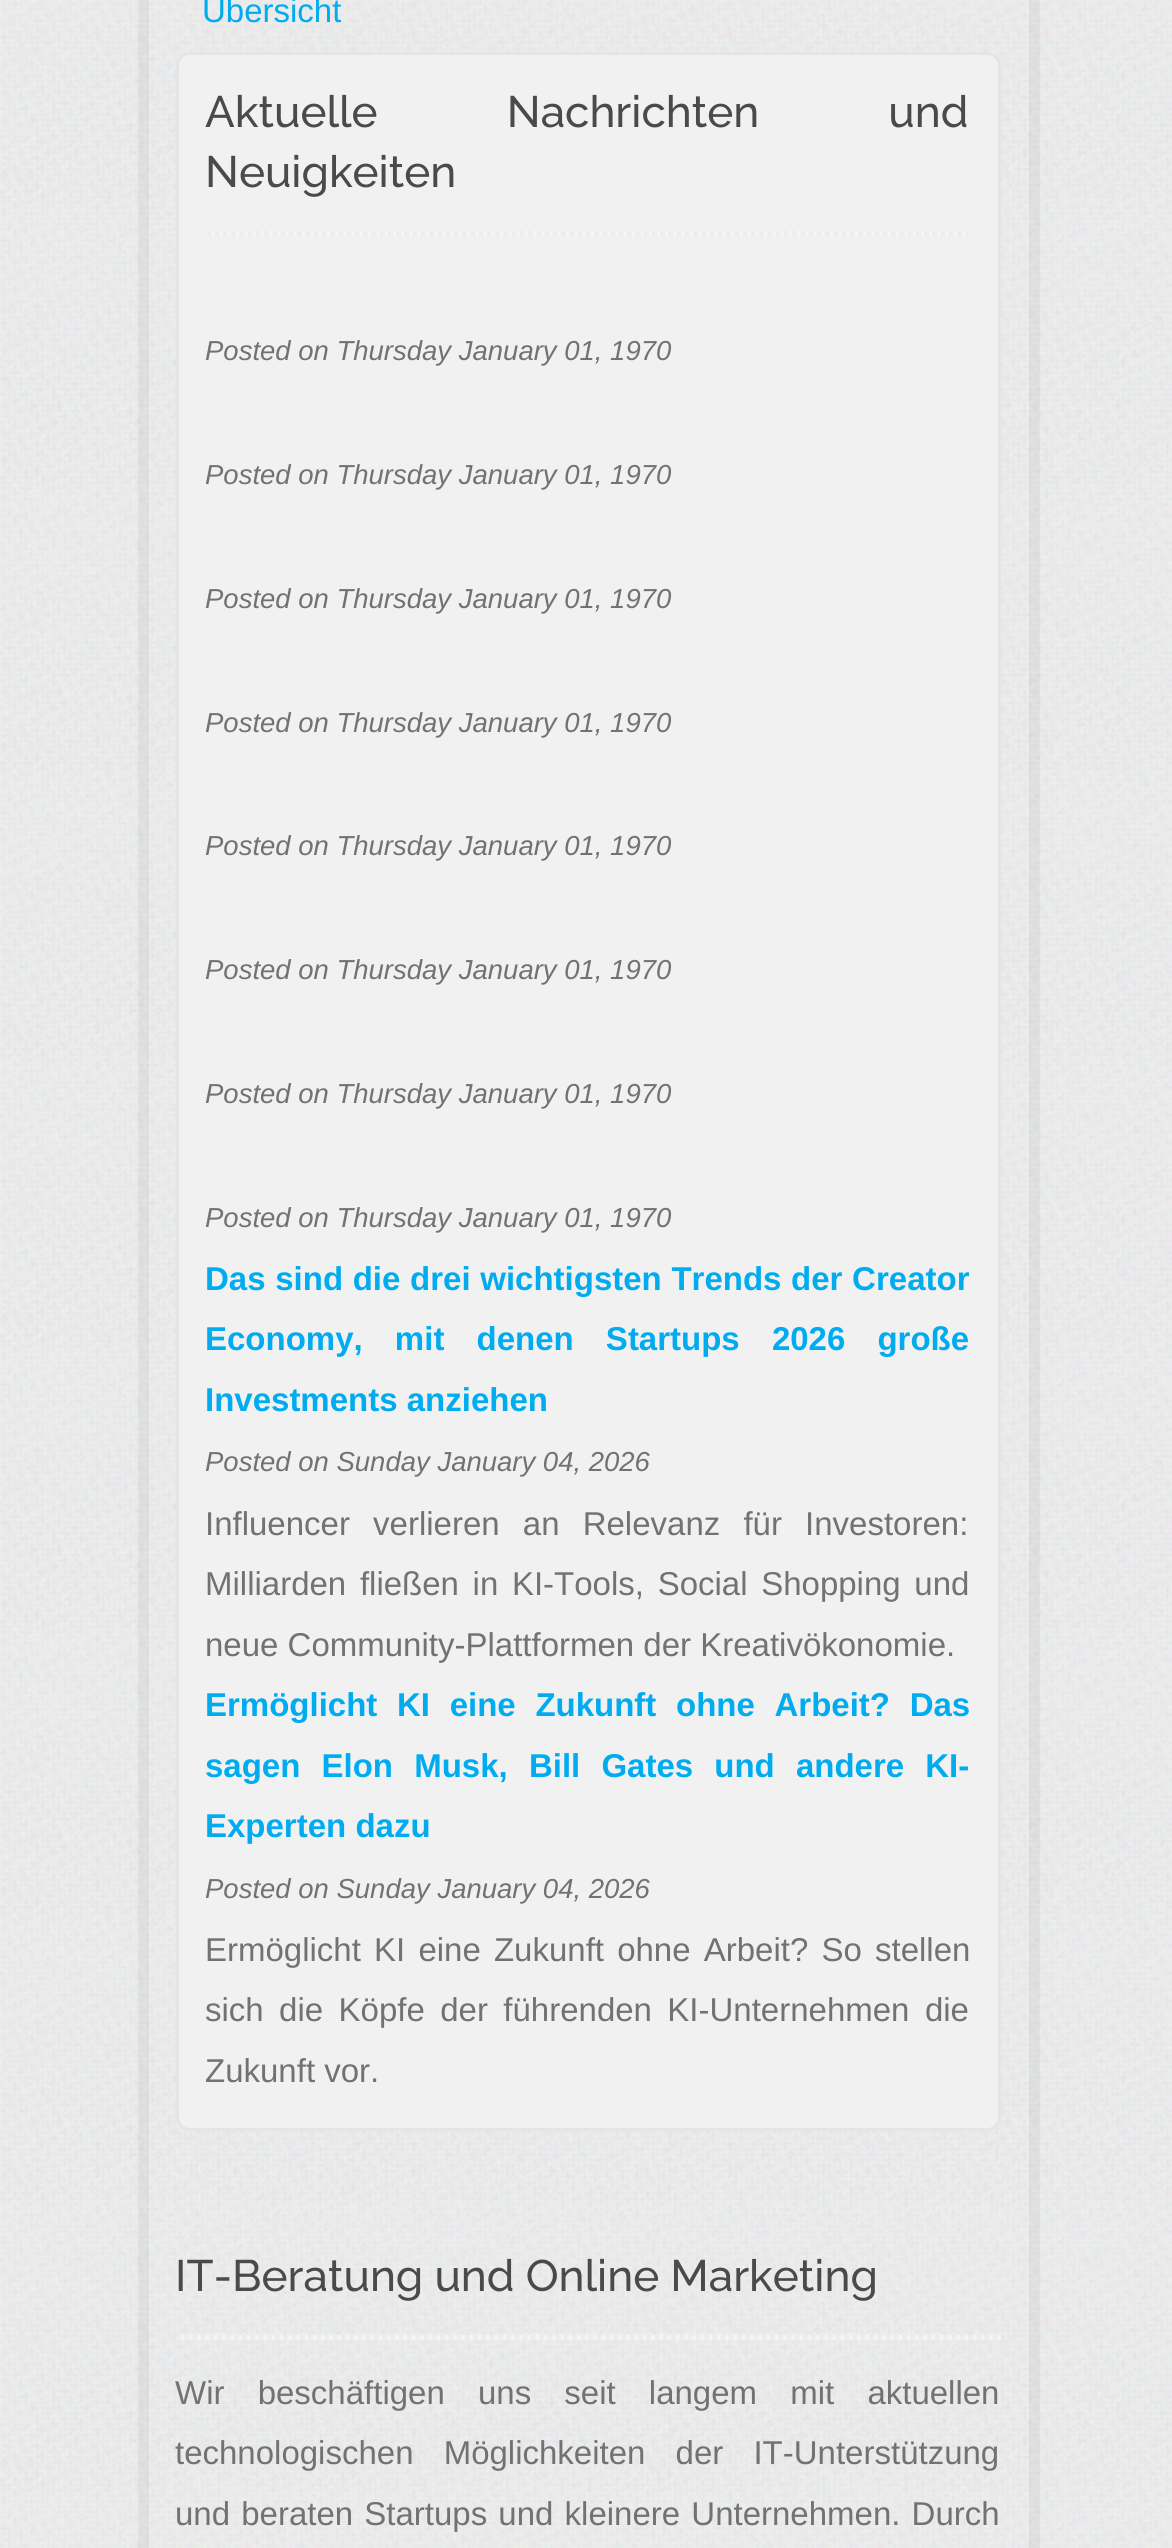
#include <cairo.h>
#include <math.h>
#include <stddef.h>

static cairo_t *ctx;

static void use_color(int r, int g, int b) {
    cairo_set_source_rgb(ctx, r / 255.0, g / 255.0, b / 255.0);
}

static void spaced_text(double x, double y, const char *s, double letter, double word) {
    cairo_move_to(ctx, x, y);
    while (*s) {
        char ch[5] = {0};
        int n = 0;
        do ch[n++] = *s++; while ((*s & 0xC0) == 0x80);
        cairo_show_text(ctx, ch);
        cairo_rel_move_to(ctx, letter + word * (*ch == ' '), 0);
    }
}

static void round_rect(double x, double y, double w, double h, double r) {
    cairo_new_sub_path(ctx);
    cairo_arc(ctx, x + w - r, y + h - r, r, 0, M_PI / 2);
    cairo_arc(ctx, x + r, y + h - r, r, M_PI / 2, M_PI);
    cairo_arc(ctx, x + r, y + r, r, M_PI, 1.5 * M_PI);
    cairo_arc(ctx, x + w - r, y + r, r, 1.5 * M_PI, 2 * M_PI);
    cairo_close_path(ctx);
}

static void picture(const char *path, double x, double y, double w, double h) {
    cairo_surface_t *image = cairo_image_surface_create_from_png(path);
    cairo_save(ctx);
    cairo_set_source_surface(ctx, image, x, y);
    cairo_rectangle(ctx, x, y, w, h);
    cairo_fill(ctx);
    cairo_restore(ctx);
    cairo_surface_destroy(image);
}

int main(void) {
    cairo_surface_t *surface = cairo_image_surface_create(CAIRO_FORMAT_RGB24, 1172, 2548);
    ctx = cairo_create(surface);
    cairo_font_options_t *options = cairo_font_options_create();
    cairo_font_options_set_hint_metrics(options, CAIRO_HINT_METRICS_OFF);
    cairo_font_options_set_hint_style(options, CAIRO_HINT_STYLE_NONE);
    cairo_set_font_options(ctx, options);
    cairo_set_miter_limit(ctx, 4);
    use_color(255, 255, 255);
    cairo_paint(ctx);
    picture("img1.png", 0, 0, 1172, 2548);
    cairo_rectangle(ctx, 143.5, -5.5, 891, 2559);
    cairo_set_source_rgba(ctx, 0, 0, 0, 0.05);
    cairo_set_line_width(ctx, 11);
    cairo_stroke(ctx);
    cairo_select_font_face(ctx, "Liberation Sans", CAIRO_FONT_SLANT_NORMAL, CAIRO_FONT_WEIGHT_NORMAL);
    cairo_set_font_size(ctx, 33);
    use_color(0, 172, 239);
    cairo_move_to(ctx, 202, 22);
    cairo_show_text(ctx, "Übersicht");
    use_color(241, 241, 241);
    round_rect(177.5, 53.5, 822, 2076, 12.5);
    cairo_fill_preserve(ctx);
    use_color(229, 229, 229);
    cairo_set_line_width(ctx, 3);
    cairo_stroke(ctx);
    picture("img2.png", 207, 231, 761, 5);
    cairo_select_font_face(ctx, "Raleway Medium", CAIRO_FONT_SLANT_NORMAL, CAIRO_FONT_WEIGHT_NORMAL);
    cairo_set_font_size(ctx, 44);
    use_color(74, 74, 74);
    spaced_text(205, 127, "Aktuelle Nachrichten und", 0, 118);
    cairo_move_to(ctx, 205, 187);
    cairo_show_text(ctx, "Neuigkeiten");
    cairo_select_font_face(ctx, "Liberation Sans", CAIRO_FONT_SLANT_ITALIC, CAIRO_FONT_WEIGHT_NORMAL);
    cairo_set_font_size(ctx, 27.5);
    use_color(114, 114, 114);
    cairo_move_to(ctx, 205, 360);
    cairo_show_text(ctx, "Posted on Thursday January 01, 1970");
    cairo_move_to(ctx, 205, 484);
    cairo_show_text(ctx, "Posted on Thursday January 01, 1970");
    cairo_move_to(ctx, 205, 608);
    cairo_show_text(ctx, "Posted on Thursday January 01, 1970");
    cairo_move_to(ctx, 205, 732);
    cairo_show_text(ctx, "Posted on Thursday January 01, 1970");
    cairo_move_to(ctx, 205, 855);
    cairo_show_text(ctx, "Posted on Thursday January 01, 1970");
    cairo_move_to(ctx, 205, 979);
    cairo_show_text(ctx, "Posted on Thursday January 01, 1970");
    cairo_move_to(ctx, 205, 1103);
    cairo_show_text(ctx, "Posted on Thursday January 01, 1970");
    cairo_move_to(ctx, 205, 1227);
    cairo_show_text(ctx, "Posted on Thursday January 01, 1970");
    cairo_select_font_face(ctx, "Liberation Sans", CAIRO_FONT_SLANT_NORMAL, CAIRO_FONT_WEIGHT_BOLD);
    cairo_set_font_size(ctx, 33);
    use_color(0, 172, 239);
    spaced_text(205, 1290, "Das sind die drei wichtigsten Trends der Creator", 0, 0.5);
    spaced_text(205, 1350, "Economy, mit denen Startups 2026 große", 0, 23);
    cairo_move_to(ctx, 205, 1411);
    cairo_show_text(ctx, "Investments anziehen");
    cairo_select_font_face(ctx, "Liberation Sans", CAIRO_FONT_SLANT_ITALIC, CAIRO_FONT_WEIGHT_NORMAL);
    cairo_set_font_size(ctx, 27.5);
    use_color(114, 114, 114);
    cairo_move_to(ctx, 205, 1471);
    cairo_show_text(ctx, "Posted on Sunday January 04, 2026");
    cairo_select_font_face(ctx, "Liberation Sans", CAIRO_FONT_SLANT_NORMAL, CAIRO_FONT_WEIGHT_NORMAL);
    cairo_set_font_size(ctx, 33);
    spaced_text(205, 1535, "Influencer verlieren an Relevanz für Investoren:", 0, 14);
    spaced_text(205, 1595, "Milliarden fließen in KI-Tools, Social Shopping und", 0, 4.5);
    cairo_move_to(ctx, 205, 1656);
    cairo_show_text(ctx, "neue Community-Plattformen der Kreativökonomie.");
    cairo_select_font_face(ctx, "Liberation Sans", CAIRO_FONT_SLANT_NORMAL, CAIRO_FONT_WEIGHT_BOLD);
    use_color(0, 172, 239);
    spaced_text(205, 1716, "Ermöglicht KI eine Zukunft ohne Arbeit? Das", 0, 10.5);
    spaced_text(205, 1777, "sagen Elon Musk, Bill Gates und andere KI-", 0, 12);
    cairo_move_to(ctx, 205, 1837);
    cairo_show_text(ctx, "Experten dazu");
    cairo_select_font_face(ctx, "Liberation Sans", CAIRO_FONT_SLANT_ITALIC, CAIRO_FONT_WEIGHT_NORMAL);
    cairo_set_font_size(ctx, 27.5);
    use_color(114, 114, 114);
    cairo_move_to(ctx, 205, 1898);
    cairo_show_text(ctx, "Posted on Sunday January 04, 2026");
    cairo_select_font_face(ctx, "Liberation Sans", CAIRO_FONT_SLANT_NORMAL, CAIRO_FONT_WEIGHT_NORMAL);
    cairo_set_font_size(ctx, 33);
    spaced_text(205, 1961, "Ermöglicht KI eine Zukunft ohne Arbeit? So stellen", 0, 4);
    spaced_text(205, 2021, "sich die Köpfe der führenden KI-Unternehmen die", 0, 6.25);
    cairo_move_to(ctx, 205, 2082);
    cairo_show_text(ctx, "Zukunft vor.");
    picture("img3.png", 176, 2334, 825, 7);
    cairo_select_font_face(ctx, "Raleway Medium", CAIRO_FONT_SLANT_NORMAL, CAIRO_FONT_WEIGHT_NORMAL);
    cairo_set_font_size(ctx, 44);
    use_color(74, 74, 74);
    cairo_move_to(ctx, 175, 2291);
    cairo_show_text(ctx, "IT-Beratung und Online Marketing");
    cairo_select_font_face(ctx, "Liberation Sans", CAIRO_FONT_SLANT_NORMAL, CAIRO_FONT_WEIGHT_NORMAL);
    cairo_set_font_size(ctx, 33);
    use_color(114, 114, 114);
    spaced_text(175, 2404, "Wir beschäftigen uns seit langem mit aktuellen", 0, 24);
    spaced_text(175, 2464, "technologischen Möglichkeiten der IT-Unterstützung", 0, 21);
    spaced_text(175, 2525, "und beraten Startups und kleinere Unternehmen. Durch", 0, 2);
    cairo_surface_write_to_png(surface, "result.png");
    cairo_font_options_destroy(options);
    cairo_destroy(ctx);
    cairo_surface_destroy(surface);
    return 0;
}
